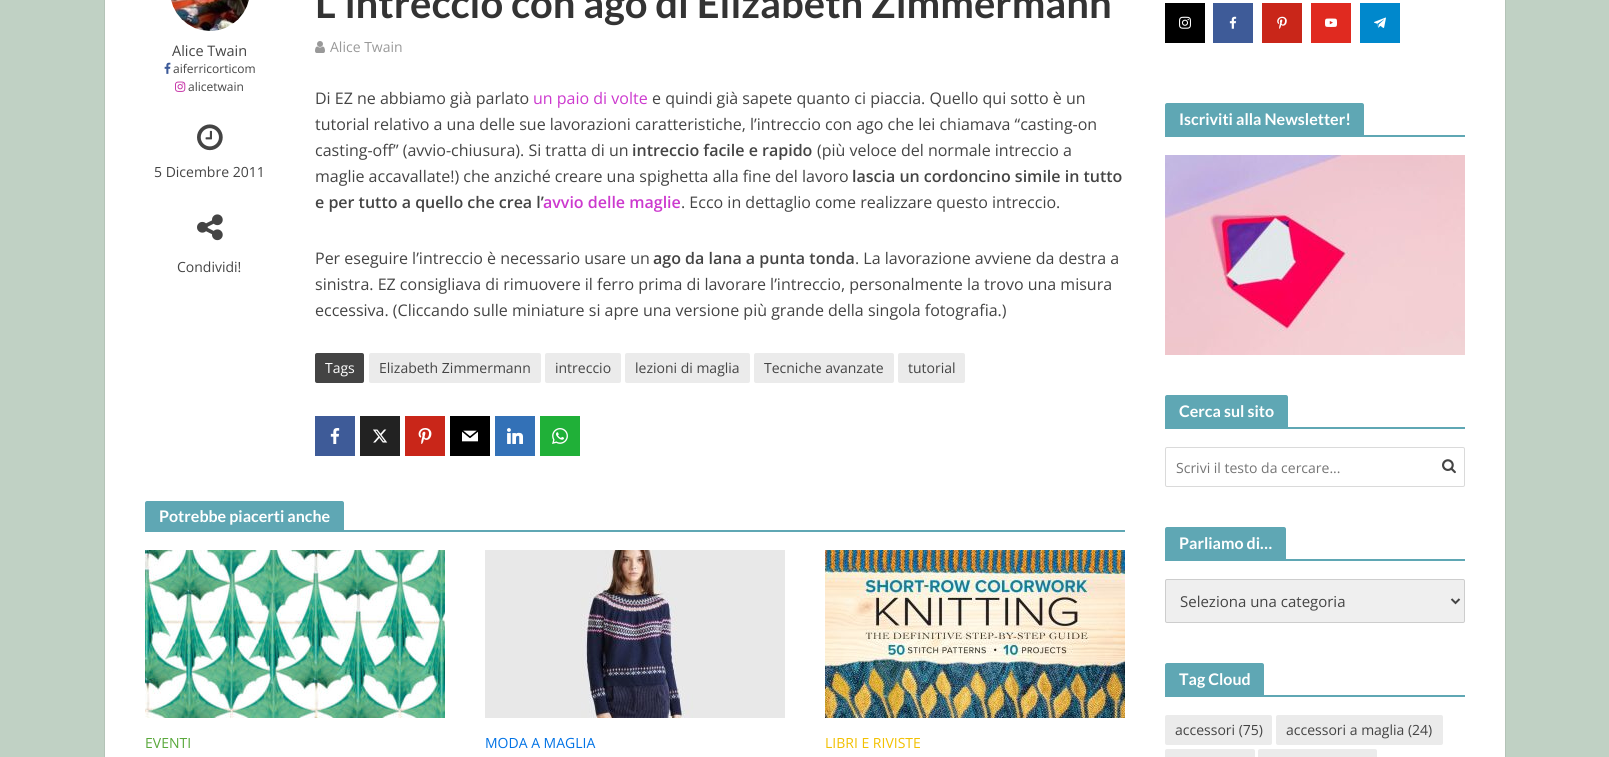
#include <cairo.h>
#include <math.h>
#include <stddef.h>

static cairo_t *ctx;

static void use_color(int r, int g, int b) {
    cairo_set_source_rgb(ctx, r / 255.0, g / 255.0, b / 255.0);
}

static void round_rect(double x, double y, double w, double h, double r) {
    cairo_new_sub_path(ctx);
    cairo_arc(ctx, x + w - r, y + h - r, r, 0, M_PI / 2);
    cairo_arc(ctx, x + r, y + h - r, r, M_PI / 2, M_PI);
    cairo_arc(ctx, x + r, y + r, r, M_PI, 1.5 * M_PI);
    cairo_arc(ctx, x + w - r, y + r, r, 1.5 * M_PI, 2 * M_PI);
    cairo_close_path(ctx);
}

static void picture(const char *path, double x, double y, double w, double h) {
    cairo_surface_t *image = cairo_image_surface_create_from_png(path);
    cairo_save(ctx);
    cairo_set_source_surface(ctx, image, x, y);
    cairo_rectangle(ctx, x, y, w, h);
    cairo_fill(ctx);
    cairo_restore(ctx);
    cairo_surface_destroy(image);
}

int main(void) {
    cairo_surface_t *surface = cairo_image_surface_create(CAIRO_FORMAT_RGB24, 1609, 757);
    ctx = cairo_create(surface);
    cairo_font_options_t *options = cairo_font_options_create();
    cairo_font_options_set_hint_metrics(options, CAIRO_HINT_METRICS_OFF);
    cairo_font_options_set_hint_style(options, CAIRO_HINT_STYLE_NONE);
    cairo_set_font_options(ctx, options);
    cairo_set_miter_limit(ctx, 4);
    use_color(192, 209, 196);
    cairo_paint(ctx);
    cairo_rectangle(ctx, 104.5, -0.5, 1401, 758);
    use_color(180, 195, 183);
    cairo_set_line_width(ctx, 1);
    cairo_stroke(ctx);
    use_color(255, 255, 255);
    cairo_rectangle(ctx, 105, 0, 1400, 757);
    cairo_fill(ctx);
    picture("img1.png", 171, 0, 78, 31);
    cairo_select_font_face(ctx, "Open Sans", CAIRO_FONT_SLANT_NORMAL, CAIRO_FONT_WEIGHT_NORMAL);
    cairo_set_font_size(ctx, 14.5);
    use_color(68, 68, 68);
    cairo_move_to(ctx, 172, 56);
    cairo_show_text(ctx, "Alice Twain");
    picture("img2.png", 164, 62, 7, 12);
    cairo_set_font_size(ctx, 12);
    cairo_move_to(ctx, 173, 73);
    cairo_show_text(ctx, "aiferricorticom");
    picture("img3.png", 175, 81, 11, 11);
    cairo_move_to(ctx, 188, 91);
    cairo_show_text(ctx, "alicetwain");
    picture("img4.png", 197, 124, 26, 27);
    cairo_set_font_size(ctx, 14);
    cairo_move_to(ctx, 154, 177);
    cairo_show_text(ctx, "5 Dicembre 2011");
    picture("img5.png", 197, 214, 26, 27);
    cairo_move_to(ctx, 177, 272);
    cairo_show_text(ctx, "Condividi!");
    cairo_select_font_face(ctx, "Lato", CAIRO_FONT_SLANT_NORMAL, CAIRO_FONT_WEIGHT_BOLD);
    cairo_set_font_size(ctx, 40);
    use_color(51, 51, 51);
    cairo_move_to(ctx, 315, 18);
    cairo_show_text(ctx, "L’intreccio con ago di Elizabeth Zimmermann");
    picture("img6.png", 315, 41, 10, 12);
    cairo_select_font_face(ctx, "Open Sans", CAIRO_FONT_SLANT_NORMAL, CAIRO_FONT_WEIGHT_NORMAL);
    cairo_set_font_size(ctx, 14);
    use_color(153, 153, 153);
    cairo_move_to(ctx, 330, 52);
    cairo_show_text(ctx, "Alice Twain");
    cairo_set_font_size(ctx, 16);
    use_color(68, 68, 68);
    cairo_move_to(ctx, 315, 104);
    cairo_show_text(ctx, "Di EZ ne abbiamo già parlato");
    use_color(204, 57, 206);
    cairo_move_to(ctx, 533, 104);
    cairo_show_text(ctx, "un paio di volte");
    use_color(68, 68, 68);
    cairo_move_to(ctx, 652, 104);
    cairo_show_text(ctx, "e quindi già sapete quanto ci piaccia. Quello qui sotto è un");
    cairo_move_to(ctx, 315, 130);
    cairo_show_text(ctx, "tutorial relativo a una delle sue lavorazioni caratteristiche, l’intreccio con ago che lei chiamava “casting-on");
    cairo_move_to(ctx, 315, 156);
    cairo_show_text(ctx, "casting-off” (avvio-chiusura). Si tratta di un");
    cairo_select_font_face(ctx, "Open Sans SemiBold", CAIRO_FONT_SLANT_NORMAL, CAIRO_FONT_WEIGHT_NORMAL);
    cairo_move_to(ctx, 632, 156);
    cairo_show_text(ctx, "intreccio facile e rapido");
    cairo_select_font_face(ctx, "Open Sans", CAIRO_FONT_SLANT_NORMAL, CAIRO_FONT_WEIGHT_NORMAL);
    cairo_move_to(ctx, 817, 156);
    cairo_show_text(ctx, "(più veloce del normale intreccio a");
    cairo_move_to(ctx, 315, 182);
    cairo_show_text(ctx, "maglie accavallate!) che anziché creare una spighetta alla fine del lavoro");
    cairo_select_font_face(ctx, "Open Sans SemiBold", CAIRO_FONT_SLANT_NORMAL, CAIRO_FONT_WEIGHT_NORMAL);
    cairo_move_to(ctx, 852, 182);
    cairo_show_text(ctx, "lascia un cordoncino simile in tutto");
    cairo_move_to(ctx, 315, 208);
    cairo_show_text(ctx, "e per tutto a quello che crea l’");
    use_color(204, 57, 206);
    cairo_move_to(ctx, 543, 208);
    cairo_show_text(ctx, "avvio delle maglie");
    cairo_select_font_face(ctx, "Open Sans", CAIRO_FONT_SLANT_NORMAL, CAIRO_FONT_WEIGHT_NORMAL);
    use_color(68, 68, 68);
    cairo_move_to(ctx, 681, 208);
    cairo_show_text(ctx, ". Ecco in dettaglio come realizzare questo intreccio.");
    cairo_move_to(ctx, 315, 264);
    cairo_show_text(ctx, "Per eseguire l’intreccio è necessario usare un");
    cairo_select_font_face(ctx, "Open Sans SemiBold", CAIRO_FONT_SLANT_NORMAL, CAIRO_FONT_WEIGHT_NORMAL);
    cairo_move_to(ctx, 653, 264);
    cairo_show_text(ctx, "ago da lana a punta tonda");
    cairo_select_font_face(ctx, "Open Sans", CAIRO_FONT_SLANT_NORMAL, CAIRO_FONT_WEIGHT_NORMAL);
    cairo_move_to(ctx, 855, 264);
    cairo_show_text(ctx, ". La lavorazione avviene da destra a");
    cairo_move_to(ctx, 315, 290);
    cairo_show_text(ctx, "sinistra. EZ consigliava di rimuovere il ferro prima di lavorare l’intreccio, personalmente la trovo una misura");
    cairo_move_to(ctx, 315, 316);
    cairo_show_text(ctx, "eccessiva. (Cliccando sulle miniature si apre una versione più grande della singola fotografia.)");
    round_rect(315, 353, 49, 30, 2);
    cairo_fill(ctx);
    cairo_set_font_size(ctx, 14);
    use_color(255, 255, 255);
    cairo_move_to(ctx, 325, 373);
    cairo_show_text(ctx, "Tags");
    use_color(235, 235, 235);
    round_rect(369, 353, 172, 30, 2);
    cairo_fill(ctx);
    use_color(68, 68, 68);
    cairo_move_to(ctx, 379, 373);
    cairo_show_text(ctx, "Elizabeth Zimmermann");
    use_color(235, 235, 235);
    round_rect(545, 353, 76, 30, 2);
    cairo_fill(ctx);
    use_color(68, 68, 68);
    cairo_move_to(ctx, 555, 373);
    cairo_show_text(ctx, "intreccio");
    use_color(235, 235, 235);
    round_rect(625, 353, 125, 30, 2);
    cairo_fill(ctx);
    use_color(68, 68, 68);
    cairo_move_to(ctx, 635, 373);
    cairo_show_text(ctx, "lezioni di maglia");
    use_color(235, 235, 235);
    round_rect(754, 353, 140, 30, 2);
    cairo_fill(ctx);
    use_color(68, 68, 68);
    cairo_move_to(ctx, 764, 373);
    cairo_show_text(ctx, "Tecniche avanzate");
    use_color(235, 235, 235);
    round_rect(898, 353, 67, 30, 2);
    cairo_fill(ctx);
    use_color(68, 68, 68);
    cairo_move_to(ctx, 908, 373);
    cairo_show_text(ctx, "tutorial");
    use_color(62, 91, 152);
    cairo_rectangle(ctx, 315, 416, 40, 40);
    cairo_fill(ctx);
    picture("img7.png", 330, 428, 10, 16);
    use_color(34, 34, 34);
    cairo_rectangle(ctx, 360, 416, 40, 40);
    cairo_fill(ctx);
    picture("img8.png", 373, 429, 15, 14);
    use_color(201, 38, 25);
    cairo_rectangle(ctx, 405, 416, 40, 40);
    cairo_fill(ctx);
    picture("img9.png", 418, 428, 14, 16);
    use_color(0, 0, 0);
    cairo_rectangle(ctx, 450, 416, 40, 40);
    cairo_fill(ctx);
    picture("img10.png", 462, 430, 16, 12);
    use_color(51, 113, 183);
    cairo_rectangle(ctx, 495, 416, 40, 40);
    cairo_fill(ctx);
    picture("img11.png", 507, 428, 16, 16);
    use_color(32, 176, 56);
    cairo_rectangle(ctx, 540, 416, 40, 40);
    cairo_fill(ctx);
    picture("img12.png", 552, 428, 16, 16);
    use_color(95, 167, 180);
    cairo_new_path(ctx);
    cairo_move_to(ctx, 147, 501);
    cairo_line_to(ctx, 342, 501);
    cairo_curve_to(ctx, 343, 501, 344, 502, 344, 503);
    cairo_line_to(ctx, 344, 530);
    cairo_line_to(ctx, 145, 530);
    cairo_line_to(ctx, 145, 503);
    cairo_curve_to(ctx, 145, 502, 146, 501, 147, 501);
    cairo_close_path(ctx);
    cairo_fill(ctx);
    cairo_select_font_face(ctx, "Lato", CAIRO_FONT_SLANT_NORMAL, CAIRO_FONT_WEIGHT_BOLD);
    cairo_set_font_size(ctx, 16);
    use_color(255, 255, 255);
    cairo_move_to(ctx, 159, 522);
    cairo_show_text(ctx, "Potrebbe piacerti anche");
    use_color(95, 167, 180);
    cairo_rectangle(ctx, 145, 530, 980, 2);
    cairo_fill(ctx);
    picture("img13.png", 145, 550, 300, 168);
    cairo_select_font_face(ctx, "Open Sans", CAIRO_FONT_SLANT_NORMAL, CAIRO_FONT_WEIGHT_NORMAL);
    cairo_set_font_size(ctx, 14);
    use_color(89, 168, 59);
    cairo_move_to(ctx, 145, 748);
    cairo_show_text(ctx, "EVENTI");
    picture("img14.png", 485, 550, 300, 168);
    use_color(0, 114, 229);
    cairo_move_to(ctx, 485, 748);
    cairo_show_text(ctx, "MODA A MAGLIA");
    picture("img15.png", 825, 550, 300, 168);
    use_color(242, 192, 0);
    cairo_move_to(ctx, 825, 748);
    cairo_show_text(ctx, "LIBRI E RIVISTE");
    use_color(0, 0, 0);
    cairo_rectangle(ctx, 1165, 3, 40, 40);
    cairo_fill(ctx);
    picture("img16.png", 1179, 16, 12, 13);
    use_color(62, 91, 152);
    cairo_rectangle(ctx, 1213, 3, 40, 40);
    cairo_fill(ctx);
    picture("img17.png", 1229, 16, 8, 13);
    use_color(201, 38, 25);
    cairo_rectangle(ctx, 1262, 3, 40, 40);
    cairo_fill(ctx);
    picture("img18.png", 1277, 16, 10, 13);
    use_color(224, 42, 32);
    cairo_rectangle(ctx, 1311, 3, 40, 40);
    cairo_fill(ctx);
    picture("img19.png", 1325, 18, 12, 9);
    use_color(0, 136, 204);
    cairo_rectangle(ctx, 1360, 3, 40, 40);
    cairo_fill(ctx);
    picture("img20.png", 1374, 17, 12, 11);
    use_color(95, 167, 180);
    cairo_new_path(ctx);
    cairo_move_to(ctx, 1167, 103);
    cairo_line_to(ctx, 1362, 103);
    cairo_curve_to(ctx, 1363, 103, 1364, 104, 1364, 105);
    cairo_line_to(ctx, 1364, 135);
    cairo_line_to(ctx, 1165, 135);
    cairo_line_to(ctx, 1165, 105);
    cairo_curve_to(ctx, 1165, 104, 1166, 103, 1167, 103);
    cairo_close_path(ctx);
    cairo_fill(ctx);
    cairo_select_font_face(ctx, "Lato", CAIRO_FONT_SLANT_NORMAL, CAIRO_FONT_WEIGHT_BOLD);
    cairo_set_font_size(ctx, 16);
    use_color(255, 255, 255);
    cairo_move_to(ctx, 1179, 125);
    cairo_show_text(ctx, "Iscriviti alla Newsletter!");
    use_color(95, 167, 180);
    cairo_rectangle(ctx, 1165, 135, 300, 2);
    cairo_fill(ctx);
    picture("img21.png", 1165, 155, 300, 200);
    cairo_new_path(ctx);
    cairo_move_to(ctx, 1167, 395);
    cairo_line_to(ctx, 1286, 395);
    cairo_curve_to(ctx, 1287, 395, 1288, 396, 1288, 397);
    cairo_line_to(ctx, 1288, 427);
    cairo_line_to(ctx, 1165, 427);
    cairo_line_to(ctx, 1165, 397);
    cairo_curve_to(ctx, 1165, 396, 1166, 395, 1167, 395);
    cairo_close_path(ctx);
    cairo_fill(ctx);
    use_color(255, 255, 255);
    cairo_move_to(ctx, 1179, 417);
    cairo_show_text(ctx, "Cerca sul sito");
    use_color(95, 167, 180);
    cairo_rectangle(ctx, 1165, 427, 300, 2);
    cairo_fill(ctx);
    round_rect(1165.5, 447.5, 299, 39, 1.5);
    use_color(218, 218, 218);
    cairo_stroke(ctx);
    cairo_select_font_face(ctx, "Open Sans", CAIRO_FONT_SLANT_NORMAL, CAIRO_FONT_WEIGHT_NORMAL);
    cairo_set_font_size(ctx, 14);
    use_color(117, 117, 117);
    cairo_move_to(ctx, 1176, 473);
    cairo_show_text(ctx, "Scrivi il testo da cercare...");
    picture("img22.png", 1442, 459, 14, 15);
    use_color(95, 167, 180);
    cairo_new_path(ctx);
    cairo_move_to(ctx, 1167, 527);
    cairo_line_to(ctx, 1284, 527);
    cairo_curve_to(ctx, 1285, 527, 1286, 528, 1286, 529);
    cairo_line_to(ctx, 1286, 559);
    cairo_line_to(ctx, 1165, 559);
    cairo_line_to(ctx, 1165, 529);
    cairo_curve_to(ctx, 1165, 528, 1166, 527, 1167, 527);
    cairo_close_path(ctx);
    cairo_fill(ctx);
    cairo_select_font_face(ctx, "Lato", CAIRO_FONT_SLANT_NORMAL, CAIRO_FONT_WEIGHT_BOLD);
    cairo_set_font_size(ctx, 16);
    use_color(255, 255, 255);
    cairo_move_to(ctx, 1179, 549);
    cairo_show_text(ctx, "Parliamo di…");
    use_color(95, 167, 180);
    cairo_rectangle(ctx, 1165, 559, 300, 2);
    cairo_fill(ctx);
    use_color(239, 239, 239);
    round_rect(1165.5, 579.5, 299, 43, 1.5);
    cairo_fill_preserve(ctx);
    use_color(205, 205, 205);
    cairo_stroke(ctx);
    cairo_new_path(ctx);
    cairo_move_to(ctx, 1451.5, 599);
    cairo_line_to(ctx, 1455.5, 603);
    cairo_line_to(ctx, 1459.5, 599);
    use_color(68, 68, 68);
    cairo_set_line_width(ctx, 2);
    cairo_stroke(ctx);
    cairo_select_font_face(ctx, "Open Sans", CAIRO_FONT_SLANT_NORMAL, CAIRO_FONT_WEIGHT_NORMAL);
    cairo_set_font_size(ctx, 15);
    cairo_move_to(ctx, 1180, 607);
    cairo_show_text(ctx, "Seleziona una categoria");
    use_color(95, 167, 180);
    cairo_new_path(ctx);
    cairo_move_to(ctx, 1167, 663);
    cairo_line_to(ctx, 1262, 663);
    cairo_curve_to(ctx, 1263, 663, 1264, 664, 1264, 665);
    cairo_line_to(ctx, 1264, 695);
    cairo_line_to(ctx, 1165, 695);
    cairo_line_to(ctx, 1165, 665);
    cairo_curve_to(ctx, 1165, 664, 1166, 663, 1167, 663);
    cairo_close_path(ctx);
    cairo_fill(ctx);
    cairo_select_font_face(ctx, "Lato", CAIRO_FONT_SLANT_NORMAL, CAIRO_FONT_WEIGHT_BOLD);
    cairo_set_font_size(ctx, 16);
    use_color(255, 255, 255);
    cairo_move_to(ctx, 1179, 685);
    cairo_show_text(ctx, "Tag Cloud");
    use_color(95, 167, 180);
    cairo_rectangle(ctx, 1165, 695, 300, 2);
    cairo_fill(ctx);
    use_color(235, 235, 235);
    round_rect(1165, 715, 107, 30, 2);
    cairo_fill(ctx);
    cairo_select_font_face(ctx, "Open Sans", CAIRO_FONT_SLANT_NORMAL, CAIRO_FONT_WEIGHT_NORMAL);
    cairo_set_font_size(ctx, 14);
    use_color(68, 68, 68);
    cairo_move_to(ctx, 1175, 735);
    cairo_show_text(ctx, "accessori (75)");
    use_color(235, 235, 235);
    round_rect(1276, 715, 167, 30, 2);
    cairo_fill(ctx);
    use_color(68, 68, 68);
    cairo_move_to(ctx, 1286, 735);
    cairo_show_text(ctx, "accessori a maglia (24)");
    use_color(235, 235, 235);
    round_rect(1165, 749, 90, 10, 2);
    cairo_fill(ctx);
    round_rect(1258, 749, 119, 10, 2);
    cairo_fill(ctx);
    cairo_surface_write_to_png(surface, "result.png");
    cairo_font_options_destroy(options);
    cairo_destroy(ctx);
    cairo_surface_destroy(surface);
    return 0;
}
